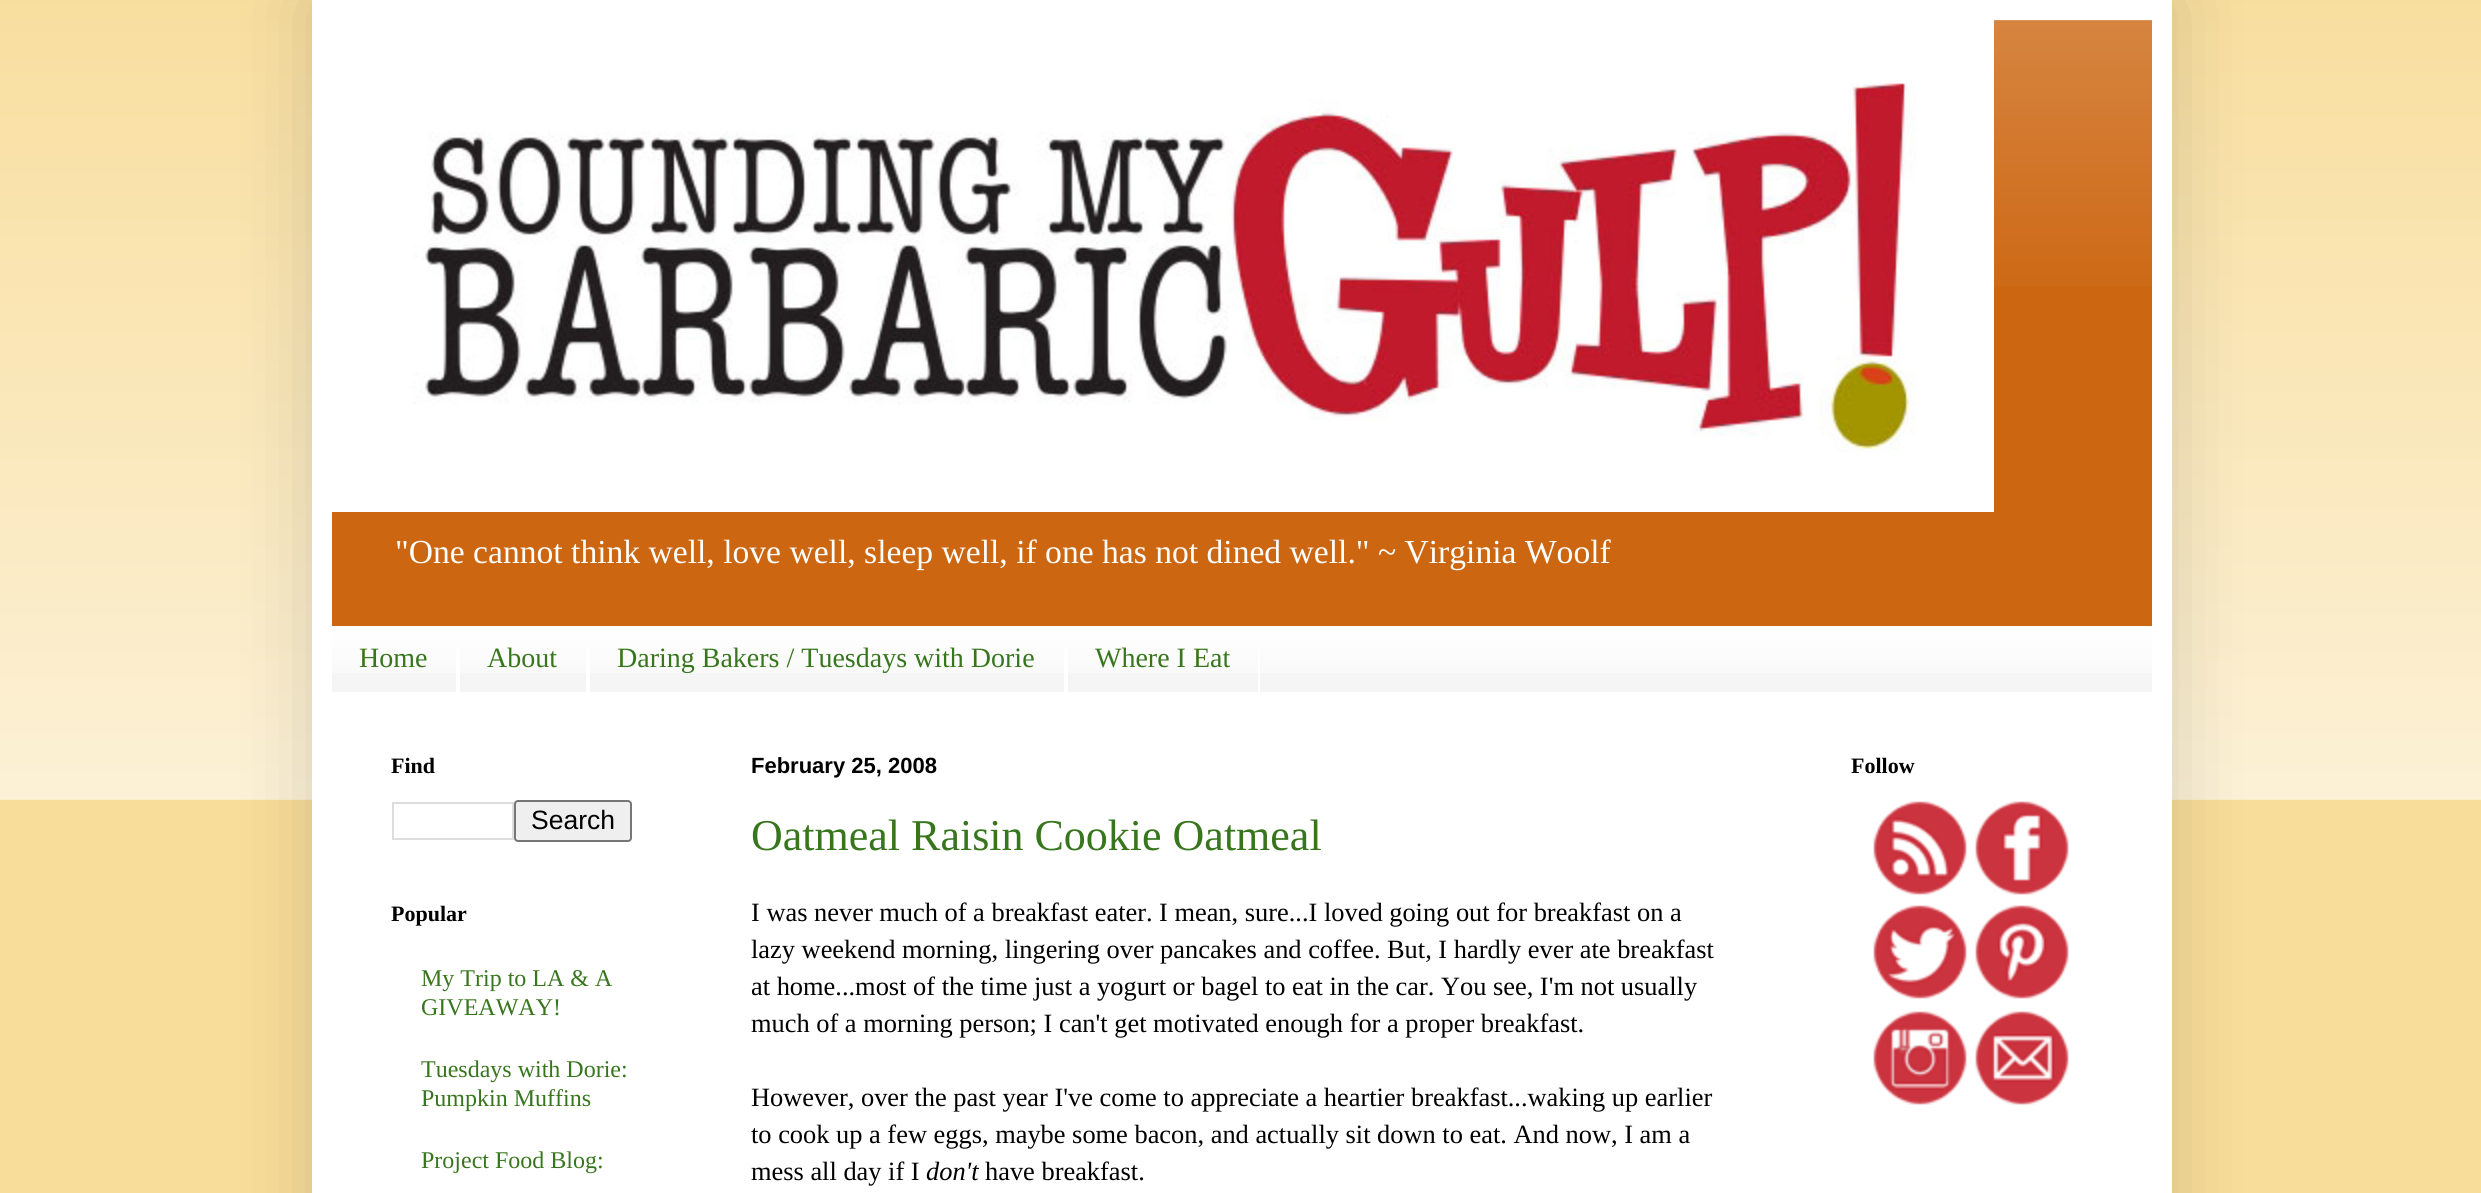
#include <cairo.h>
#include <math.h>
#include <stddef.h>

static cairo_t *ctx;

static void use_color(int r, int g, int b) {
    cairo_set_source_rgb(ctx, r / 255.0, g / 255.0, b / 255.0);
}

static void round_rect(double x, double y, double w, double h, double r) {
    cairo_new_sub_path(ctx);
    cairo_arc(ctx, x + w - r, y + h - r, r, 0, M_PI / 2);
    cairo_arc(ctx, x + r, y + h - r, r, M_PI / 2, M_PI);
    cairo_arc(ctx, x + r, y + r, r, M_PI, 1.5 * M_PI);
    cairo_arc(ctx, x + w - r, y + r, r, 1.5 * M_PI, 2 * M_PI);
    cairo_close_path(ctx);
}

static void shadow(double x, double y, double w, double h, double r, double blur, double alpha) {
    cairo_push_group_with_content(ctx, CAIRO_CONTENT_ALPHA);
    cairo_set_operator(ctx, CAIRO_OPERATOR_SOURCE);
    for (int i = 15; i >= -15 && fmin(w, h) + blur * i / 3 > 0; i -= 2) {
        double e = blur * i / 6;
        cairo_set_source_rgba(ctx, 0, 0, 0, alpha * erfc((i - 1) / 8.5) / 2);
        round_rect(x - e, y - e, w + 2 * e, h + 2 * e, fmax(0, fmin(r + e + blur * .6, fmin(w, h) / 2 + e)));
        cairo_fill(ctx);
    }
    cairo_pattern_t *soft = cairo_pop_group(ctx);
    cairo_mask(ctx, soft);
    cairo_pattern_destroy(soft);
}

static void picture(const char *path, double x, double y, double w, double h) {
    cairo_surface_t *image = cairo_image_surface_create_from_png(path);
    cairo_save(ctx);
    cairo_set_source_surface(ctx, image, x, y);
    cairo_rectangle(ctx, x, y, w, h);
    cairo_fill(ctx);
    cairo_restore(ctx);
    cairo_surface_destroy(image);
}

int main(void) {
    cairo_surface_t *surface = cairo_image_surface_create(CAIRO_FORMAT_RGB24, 2481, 1193);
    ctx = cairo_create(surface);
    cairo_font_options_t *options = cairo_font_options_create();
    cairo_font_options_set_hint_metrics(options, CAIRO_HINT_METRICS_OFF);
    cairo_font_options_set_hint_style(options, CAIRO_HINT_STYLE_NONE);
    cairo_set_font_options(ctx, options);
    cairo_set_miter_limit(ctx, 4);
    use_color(248, 220, 153);
    cairo_paint(ctx);
    picture("img1.png", 0, 0, 2481, 800);
    use_color(0, 0, 0);
    shadow(312, 0, 1860, 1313, 0, 40, 0.15);
    use_color(255, 255, 255);
    cairo_rectangle(ctx, 312, 0, 1860, 1193);
    cairo_fill(ctx);
    use_color(204, 102, 17);
    cairo_rectangle(ctx, 332, 20, 1820, 606);
    cairo_fill(ctx);
    picture("img2.png", 1994, 20, 158, 266);
    picture("img3.png", 332, 20, 1662, 492);
    cairo_select_font_face(ctx, "Liberation Serif", CAIRO_FONT_SLANT_NORMAL, CAIRO_FONT_WEIGHT_NORMAL);
    cairo_set_font_size(ctx, 33.6);
    use_color(255, 255, 255);
    cairo_move_to(ctx, 395, 563);
    cairo_show_text(ctx, "\"One cannot think well, love well, sleep well, if one has not dined well.\" ~ Virginia Woolf");
    use_color(245, 245, 245);
    cairo_rectangle(ctx, 332, 626, 1820, 66);
    cairo_fill(ctx);
    picture("img4.png", 332, 626, 1820, 47);
    use_color(255, 255, 255);
    cairo_rectangle(ctx, 456, 648, 4, 44);
    cairo_fill(ctx);
    cairo_set_font_size(ctx, 28);
    use_color(56, 118, 29);
    cairo_move_to(ctx, 359, 667);
    cairo_show_text(ctx, "Home");
    use_color(255, 255, 255);
    cairo_rectangle(ctx, 586, 648, 4, 44);
    cairo_fill(ctx);
    use_color(56, 118, 29);
    cairo_move_to(ctx, 487, 667);
    cairo_show_text(ctx, "About");
    use_color(255, 255, 255);
    cairo_rectangle(ctx, 1064, 648, 4, 44);
    cairo_fill(ctx);
    use_color(56, 118, 29);
    cairo_move_to(ctx, 617, 667);
    cairo_show_text(ctx, "Daring Bakers / Tuesdays with Dorie");
    use_color(255, 255, 255);
    cairo_rectangle(ctx, 1258, 648, 2, 44);
    cairo_fill(ctx);
    use_color(56, 118, 29);
    cairo_move_to(ctx, 1095, 667);
    cairo_show_text(ctx, "Where I Eat");
    cairo_select_font_face(ctx, "Liberation Serif", CAIRO_FONT_SLANT_NORMAL, CAIRO_FONT_WEIGHT_BOLD);
    cairo_set_font_size(ctx, 22);
    use_color(0, 0, 0);
    cairo_move_to(ctx, 391, 773);
    cairo_show_text(ctx, "Find");
    cairo_rectangle(ctx, 393, 803, 120, 36);
    use_color(221, 221, 221);
    cairo_stroke(ctx);
    use_color(239, 239, 239);
    round_rect(515, 801, 116, 40, 3);
    cairo_fill_preserve(ctx);
    use_color(118, 118, 118);
    cairo_stroke(ctx);
    cairo_select_font_face(ctx, "Liberation Sans", CAIRO_FONT_SLANT_NORMAL, CAIRO_FONT_WEIGHT_NORMAL);
    cairo_set_font_size(ctx, 26.5);
    use_color(0, 0, 0);
    cairo_move_to(ctx, 531, 829);
    cairo_show_text(ctx, "Search");
    cairo_select_font_face(ctx, "Liberation Serif", CAIRO_FONT_SLANT_NORMAL, CAIRO_FONT_WEIGHT_BOLD);
    cairo_set_font_size(ctx, 22);
    cairo_move_to(ctx, 391, 921);
    cairo_show_text(ctx, "Popular");
    cairo_select_font_face(ctx, "Liberation Serif", CAIRO_FONT_SLANT_NORMAL, CAIRO_FONT_WEIGHT_NORMAL);
    cairo_set_font_size(ctx, 24);
    use_color(56, 118, 29);
    cairo_move_to(ctx, 421, 986);
    cairo_show_text(ctx, "My Trip to LA & A");
    cairo_move_to(ctx, 421, 1015);
    cairo_show_text(ctx, "GIVEAWAY!");
    cairo_move_to(ctx, 421, 1077);
    cairo_show_text(ctx, "Tuesdays with Dorie:");
    cairo_move_to(ctx, 421, 1106);
    cairo_show_text(ctx, "Pumpkin Muffins");
    cairo_move_to(ctx, 421, 1168);
    cairo_show_text(ctx, "Project Food Blog:");
    cairo_select_font_face(ctx, "Liberation Sans", CAIRO_FONT_SLANT_NORMAL, CAIRO_FONT_WEIGHT_BOLD);
    cairo_set_font_size(ctx, 22);
    use_color(0, 0, 0);
    cairo_move_to(ctx, 751, 773);
    cairo_show_text(ctx, "February 25, 2008");
    cairo_select_font_face(ctx, "Liberation Serif", CAIRO_FONT_SLANT_NORMAL, CAIRO_FONT_WEIGHT_NORMAL);
    cairo_set_font_size(ctx, 44);
    use_color(56, 118, 29);
    cairo_move_to(ctx, 751, 850);
    cairo_show_text(ctx, "Oatmeal Raisin Cookie Oatmeal");
    cairo_set_font_size(ctx, 26.4);
    use_color(0, 0, 0);
    cairo_move_to(ctx, 751, 921);
    cairo_show_text(ctx, "I was never much of a breakfast eater.");
    cairo_move_to(ctx, 1159, 921);
    cairo_show_text(ctx, "I mean, sure...I loved going out for breakfast on a");
    cairo_move_to(ctx, 751, 958);
    cairo_show_text(ctx, "lazy weekend morning, lingering over pancakes and coffee.");
    cairo_move_to(ctx, 1387, 958);
    cairo_show_text(ctx, "But, I hardly ever ate breakfast");
    cairo_move_to(ctx, 751, 995);
    cairo_show_text(ctx, "at home...most of the time just a yogurt or bagel to eat in the car. You see, I'm not usually");
    cairo_move_to(ctx, 751, 1032);
    cairo_show_text(ctx, "much of a morning person; I can't get motivated enough for a proper breakfast.");
    cairo_move_to(ctx, 751, 1106);
    cairo_show_text(ctx, "However, over the past year I've come to appreciate a heartier breakfast...waking up earlier");
    cairo_move_to(ctx, 751, 1143);
    cairo_show_text(ctx, "to cook up a few eggs, maybe some bacon, and actually sit down to eat. And now, I am a");
    cairo_move_to(ctx, 751, 1180);
    cairo_show_text(ctx, "mess all day if I");
    cairo_select_font_face(ctx, "Liberation Serif", CAIRO_FONT_SLANT_ITALIC, CAIRO_FONT_WEIGHT_NORMAL);
    cairo_move_to(ctx, 926, 1180);
    cairo_show_text(ctx, "don't");
    cairo_select_font_face(ctx, "Liberation Serif", CAIRO_FONT_SLANT_NORMAL, CAIRO_FONT_WEIGHT_NORMAL);
    cairo_move_to(ctx, 985, 1180);
    cairo_show_text(ctx, "have breakfast.");
    cairo_select_font_face(ctx, "Liberation Serif", CAIRO_FONT_SLANT_NORMAL, CAIRO_FONT_WEIGHT_BOLD);
    cairo_set_font_size(ctx, 22);
    cairo_move_to(ctx, 1851, 773);
    cairo_show_text(ctx, "Follow");
    picture("img5.png", 1873, 801, 94, 94);
    picture("img6.png", 1975, 801, 94, 94);
    picture("img7.png", 1873, 905, 94, 94);
    picture("img8.png", 1975, 905, 94, 94);
    picture("img9.png", 1873, 1011, 94, 94);
    picture("img10.png", 1975, 1011, 94, 94);
    cairo_surface_write_to_png(surface, "result.png");
    cairo_font_options_destroy(options);
    cairo_destroy(ctx);
    cairo_surface_destroy(surface);
    return 0;
}
